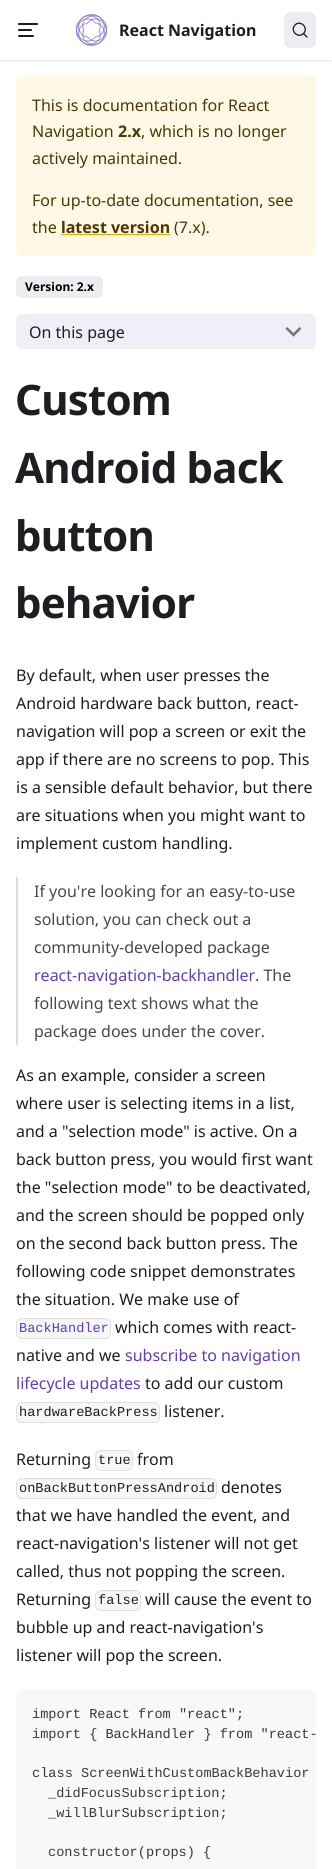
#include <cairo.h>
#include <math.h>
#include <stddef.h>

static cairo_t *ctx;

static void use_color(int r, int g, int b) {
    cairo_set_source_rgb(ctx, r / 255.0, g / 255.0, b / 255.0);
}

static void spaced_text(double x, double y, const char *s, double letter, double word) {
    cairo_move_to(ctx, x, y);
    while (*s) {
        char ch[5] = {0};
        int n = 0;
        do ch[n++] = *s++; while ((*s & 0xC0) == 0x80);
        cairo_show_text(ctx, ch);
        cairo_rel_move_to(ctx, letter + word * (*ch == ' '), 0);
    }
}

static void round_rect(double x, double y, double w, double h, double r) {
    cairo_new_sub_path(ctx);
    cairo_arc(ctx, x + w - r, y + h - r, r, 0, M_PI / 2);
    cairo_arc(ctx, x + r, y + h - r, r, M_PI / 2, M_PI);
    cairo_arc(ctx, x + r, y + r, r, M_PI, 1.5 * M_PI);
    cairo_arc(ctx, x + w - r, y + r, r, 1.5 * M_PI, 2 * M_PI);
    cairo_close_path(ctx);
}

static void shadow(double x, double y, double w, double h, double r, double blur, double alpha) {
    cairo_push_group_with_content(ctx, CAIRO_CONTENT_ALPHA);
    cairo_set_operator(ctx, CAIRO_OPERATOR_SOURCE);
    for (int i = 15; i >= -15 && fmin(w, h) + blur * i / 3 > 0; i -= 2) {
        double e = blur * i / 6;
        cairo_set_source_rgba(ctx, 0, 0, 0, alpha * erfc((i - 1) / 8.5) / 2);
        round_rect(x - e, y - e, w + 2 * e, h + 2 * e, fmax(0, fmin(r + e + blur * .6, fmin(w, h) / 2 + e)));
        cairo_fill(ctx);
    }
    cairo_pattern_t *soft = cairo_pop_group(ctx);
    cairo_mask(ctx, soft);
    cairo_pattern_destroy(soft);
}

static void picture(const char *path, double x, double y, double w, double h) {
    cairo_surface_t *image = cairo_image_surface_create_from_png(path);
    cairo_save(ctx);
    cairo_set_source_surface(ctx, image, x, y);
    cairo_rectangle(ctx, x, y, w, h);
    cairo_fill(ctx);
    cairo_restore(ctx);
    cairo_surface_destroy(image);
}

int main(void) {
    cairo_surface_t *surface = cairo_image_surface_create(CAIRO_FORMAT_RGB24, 332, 1869);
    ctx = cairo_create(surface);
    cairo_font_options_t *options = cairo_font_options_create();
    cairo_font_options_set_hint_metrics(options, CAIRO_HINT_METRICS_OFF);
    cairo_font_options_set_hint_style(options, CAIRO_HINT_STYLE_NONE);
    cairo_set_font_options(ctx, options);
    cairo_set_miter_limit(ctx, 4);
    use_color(255, 255, 255);
    cairo_paint(ctx);
    cairo_save(ctx);
    cairo_rectangle(ctx, 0, 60, 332, 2);
    cairo_clip(ctx);
    use_color(0, 0, 0);
    shadow(0, 1, 332, 60, 0, 1, 0.1);
    cairo_restore(ctx);
    cairo_new_path(ctx);
    cairo_move_to(ctx, 37, 24);
    cairo_line_to(ctx, 19, 24);
    cairo_move_to(ctx, 31, 30);
    cairo_line_to(ctx, 19, 30);
    cairo_move_to(ctx, 33, 36);
    cairo_line_to(ctx, 19, 36);
    use_color(28, 30, 33);
    cairo_set_line_cap(ctx, CAIRO_LINE_CAP_ROUND);
    cairo_set_line_join(ctx, CAIRO_LINE_JOIN_ROUND);
    cairo_stroke(ctx);
    picture("img1.png", 76, 14, 31, 32);
    cairo_select_font_face(ctx, "Noto Sans", CAIRO_FONT_SLANT_NORMAL, CAIRO_FONT_WEIGHT_BOLD);
    cairo_set_font_size(ctx, 16);
    cairo_move_to(ctx, 119, 36);
    cairo_show_text(ctx, "React Navigation");
    use_color(235, 237, 240);
    round_rect(284, 12, 32, 36, 6);
    cairo_fill(ctx);
    cairo_new_path(ctx);
    cairo_move_to(ctx, 303.5, 33.5);
    cairo_line_to(ctx, 307, 37);
    cairo_line_to(ctx, 303.5, 33.5);
    cairo_curve_to(ctx, 298, 39, 289.5, 30.5, 295, 25);
    cairo_curve_to(ctx, 300.5, 19.5, 309, 28, 303.5, 33.5);
    cairo_close_path(ctx);
    use_color(28, 30, 33);
    cairo_set_line_width(ctx, 1.3);
    cairo_stroke(ctx);
    use_color(255, 248, 230);
    round_rect(16, 76, 300, 180, 6);
    cairo_fill(ctx);
    cairo_select_font_face(ctx, "Noto Sans", CAIRO_FONT_SLANT_NORMAL, CAIRO_FONT_WEIGHT_NORMAL);
    use_color(77, 56, 0);
    cairo_move_to(ctx, 32, 111);
    cairo_show_text(ctx, "This is documentation for React");
    cairo_move_to(ctx, 32, 137);
    cairo_show_text(ctx, "Navigation");
    cairo_select_font_face(ctx, "Noto Sans", CAIRO_FONT_SLANT_NORMAL, CAIRO_FONT_WEIGHT_BOLD);
    cairo_move_to(ctx, 118, 137);
    cairo_show_text(ctx, "2.x");
    cairo_select_font_face(ctx, "Noto Sans", CAIRO_FONT_SLANT_NORMAL, CAIRO_FONT_WEIGHT_NORMAL);
    cairo_move_to(ctx, 141, 137);
    cairo_show_text(ctx, ", which is no longer");
    cairo_move_to(ctx, 32, 164);
    cairo_show_text(ctx, "actively maintained.");
    cairo_move_to(ctx, 32, 206);
    cairo_show_text(ctx, "For up-to-date documentation, see");
    cairo_move_to(ctx, 32, 233);
    cairo_show_text(ctx, "the");
    cairo_select_font_face(ctx, "Noto Sans", CAIRO_FONT_SLANT_NORMAL, CAIRO_FONT_WEIGHT_BOLD);
    cairo_move_to(ctx, 61, 233);
    cairo_show_text(ctx, "latest version");
    use_color(230, 167, 0);
    cairo_rectangle(ctx, 61, 234, 109, 1);
    cairo_fill(ctx);
    cairo_select_font_face(ctx, "Noto Sans", CAIRO_FONT_SLANT_NORMAL, CAIRO_FONT_WEIGHT_NORMAL);
    use_color(77, 56, 0);
    cairo_move_to(ctx, 174, 233);
    cairo_show_text(ctx, "(7.x).");
    use_color(235, 237, 240);
    round_rect(16.5, 276.5, 86, 21, 5.5);
    cairo_fill_preserve(ctx);
    cairo_set_line_width(ctx, 1);
    cairo_set_line_cap(ctx, CAIRO_LINE_CAP_BUTT);
    cairo_set_line_join(ctx, CAIRO_LINE_JOIN_MITER);
    cairo_stroke(ctx);
    cairo_select_font_face(ctx, "Noto Sans", CAIRO_FONT_SLANT_NORMAL, CAIRO_FONT_WEIGHT_BOLD);
    cairo_set_font_size(ctx, 12);
    use_color(0, 0, 0);
    cairo_move_to(ctx, 25, 291);
    cairo_show_text(ctx, "Version: 2.x");
    use_color(240, 238, 247);
    round_rect(16, 314, 300, 35, 6);
    cairo_fill(ctx);
    cairo_select_font_face(ctx, "Noto Sans", CAIRO_FONT_SLANT_NORMAL, CAIRO_FONT_WEIGHT_NORMAL);
    cairo_set_font_size(ctx, 16);
    use_color(28, 30, 33);
    cairo_move_to(ctx, 29, 338);
    cairo_show_text(ctx, "On this page");
    picture("img2.png", 285, 327, 17, 10);
    cairo_select_font_face(ctx, "Noto Sans", CAIRO_FONT_SLANT_NORMAL, CAIRO_FONT_WEIGHT_BOLD);
    cairo_set_font_size(ctx, 42);
    spaced_text(15, 415, "Custom", -0.8, 0);
    spaced_text(15, 483, "Android back", -0.8, 0);
    spaced_text(15, 551, "button", -0.8, 0);
    spaced_text(15, 618, "behavior", -0.8, 0);
    cairo_select_font_face(ctx, "Noto Sans", CAIRO_FONT_SLANT_NORMAL, CAIRO_FONT_WEIGHT_NORMAL);
    cairo_set_font_size(ctx, 16);
    cairo_move_to(ctx, 16, 681);
    cairo_show_text(ctx, "By default, when user presses the");
    cairo_move_to(ctx, 16, 709);
    cairo_show_text(ctx, "Android hardware back button, react-");
    cairo_move_to(ctx, 16, 737);
    cairo_show_text(ctx, "navigation will pop a screen or exit the");
    cairo_move_to(ctx, 16, 765);
    cairo_show_text(ctx, "app if there are no screens to pop. This");
    cairo_move_to(ctx, 16, 793);
    cairo_show_text(ctx, "is a sensible default behavior, but there");
    cairo_move_to(ctx, 16, 821);
    cairo_show_text(ctx, "are situations when you might want to");
    cairo_move_to(ctx, 16, 849);
    cairo_show_text(ctx, "implement custom handling.");
    use_color(218, 221, 225);
    cairo_rectangle(ctx, 16, 877, 2, 168);
    cairo_fill(ctx);
    use_color(68, 73, 80);
    cairo_move_to(ctx, 34, 897);
    cairo_show_text(ctx, "If you're looking for an easy-to-use");
    cairo_move_to(ctx, 34, 925);
    cairo_show_text(ctx, "solution, you can check out a");
    cairo_move_to(ctx, 34, 953);
    cairo_show_text(ctx, "community-developed package");
    use_color(97, 60, 196);
    cairo_move_to(ctx, 34, 981);
    cairo_show_text(ctx, "react-navigation-backhandler");
    use_color(68, 73, 80);
    cairo_move_to(ctx, 255, 981);
    cairo_show_text(ctx, ". The");
    cairo_move_to(ctx, 34, 1009);
    cairo_show_text(ctx, "following text shows what the");
    cairo_move_to(ctx, 34, 1037);
    cairo_show_text(ctx, "package does under the cover.");
    use_color(28, 30, 33);
    cairo_move_to(ctx, 16, 1081);
    cairo_show_text(ctx, "As an example, consider a screen");
    cairo_move_to(ctx, 16, 1109);
    cairo_show_text(ctx, "where user is selecting items in a list,");
    cairo_move_to(ctx, 16, 1137);
    cairo_show_text(ctx, "and a \"selection mode\" is active. On a");
    cairo_move_to(ctx, 16, 1165);
    cairo_show_text(ctx, "back button press, you would first want");
    cairo_move_to(ctx, 16, 1193);
    cairo_show_text(ctx, "the \"selection mode\" to be deactivated,");
    cairo_move_to(ctx, 16, 1221);
    cairo_show_text(ctx, "and the screen should be popped only");
    cairo_move_to(ctx, 16, 1249);
    cairo_show_text(ctx, "on the second back button press. The");
    cairo_move_to(ctx, 16, 1277);
    cairo_show_text(ctx, "following code snippet demonstrates");
    cairo_move_to(ctx, 16, 1305);
    cairo_show_text(ctx, "the situation. We make use of");
    use_color(246, 247, 248);
    round_rect(16.5, 1318.5, 94, 20, 5.5);
    cairo_fill_preserve(ctx);
    use_color(222, 222, 223);
    cairo_stroke(ctx);
    cairo_select_font_face(ctx, "Liberation Mono", CAIRO_FONT_SLANT_NORMAL, CAIRO_FONT_WEIGHT_NORMAL);
    cairo_set_font_size(ctx, 13.6);
    use_color(97, 60, 196);
    cairo_move_to(ctx, 19, 1332);
    cairo_show_text(ctx, "BackHandler");
    cairo_select_font_face(ctx, "Noto Sans", CAIRO_FONT_SLANT_NORMAL, CAIRO_FONT_WEIGHT_NORMAL);
    cairo_set_font_size(ctx, 16);
    use_color(28, 30, 33);
    cairo_move_to(ctx, 115, 1333);
    cairo_show_text(ctx, "which comes with react-");
    cairo_move_to(ctx, 16, 1361);
    cairo_show_text(ctx, "native and we");
    use_color(97, 60, 196);
    cairo_move_to(ctx, 125, 1361);
    cairo_show_text(ctx, "subscribe to navigation");
    cairo_move_to(ctx, 16, 1389);
    cairo_show_text(ctx, "lifecycle updates");
    use_color(28, 30, 33);
    cairo_move_to(ctx, 145, 1389);
    cairo_show_text(ctx, "to add our custom");
    use_color(246, 247, 248);
    round_rect(16.5, 1402.5, 143, 20, 5.5);
    cairo_fill_preserve(ctx);
    use_color(221, 222, 223);
    cairo_stroke(ctx);
    cairo_select_font_face(ctx, "Liberation Mono", CAIRO_FONT_SLANT_NORMAL, CAIRO_FONT_WEIGHT_NORMAL);
    cairo_set_font_size(ctx, 13.6);
    use_color(28, 30, 33);
    cairo_move_to(ctx, 19, 1416);
    cairo_show_text(ctx, "hardwareBackPress");
    cairo_select_font_face(ctx, "Noto Sans", CAIRO_FONT_SLANT_NORMAL, CAIRO_FONT_WEIGHT_NORMAL);
    cairo_set_font_size(ctx, 16);
    cairo_move_to(ctx, 164, 1417);
    cairo_show_text(ctx, "listener.");
    cairo_move_to(ctx, 16, 1465);
    cairo_show_text(ctx, "Returning");
    use_color(246, 247, 248);
    round_rect(95.5, 1450.5, 37, 20, 5.5);
    cairo_fill_preserve(ctx);
    use_color(222, 223, 223);
    cairo_stroke(ctx);
    cairo_select_font_face(ctx, "Liberation Mono", CAIRO_FONT_SLANT_NORMAL, CAIRO_FONT_WEIGHT_NORMAL);
    cairo_set_font_size(ctx, 13.6);
    use_color(28, 30, 33);
    cairo_move_to(ctx, 98, 1464);
    cairo_show_text(ctx, "true");
    cairo_select_font_face(ctx, "Noto Sans", CAIRO_FONT_SLANT_NORMAL, CAIRO_FONT_WEIGHT_NORMAL);
    cairo_set_font_size(ctx, 16);
    cairo_move_to(ctx, 137, 1465);
    cairo_show_text(ctx, "from");
    use_color(246, 247, 248);
    round_rect(16.5, 1478.5, 200, 20, 5.5);
    cairo_fill_preserve(ctx);
    use_color(221, 222, 223);
    cairo_stroke(ctx);
    cairo_select_font_face(ctx, "Liberation Mono", CAIRO_FONT_SLANT_NORMAL, CAIRO_FONT_WEIGHT_NORMAL);
    cairo_set_font_size(ctx, 13.6);
    use_color(28, 30, 33);
    cairo_move_to(ctx, 19, 1492);
    cairo_show_text(ctx, "onBackButtonPressAndroid");
    cairo_select_font_face(ctx, "Noto Sans", CAIRO_FONT_SLANT_NORMAL, CAIRO_FONT_WEIGHT_NORMAL);
    cairo_set_font_size(ctx, 16);
    cairo_move_to(ctx, 221, 1493);
    cairo_show_text(ctx, "denotes");
    cairo_move_to(ctx, 16, 1521);
    cairo_show_text(ctx, "that we have handled the event, and");
    cairo_move_to(ctx, 16, 1549);
    cairo_show_text(ctx, "react-navigation's listener will not get");
    cairo_move_to(ctx, 16, 1577);
    cairo_show_text(ctx, "called, thus not popping the screen.");
    cairo_move_to(ctx, 16, 1605);
    cairo_show_text(ctx, "Returning");
    use_color(246, 247, 248);
    round_rect(95.5, 1590.5, 45, 20, 5.5);
    cairo_fill_preserve(ctx);
    use_color(222, 223, 223);
    cairo_stroke(ctx);
    cairo_select_font_face(ctx, "Liberation Mono", CAIRO_FONT_SLANT_NORMAL, CAIRO_FONT_WEIGHT_NORMAL);
    cairo_set_font_size(ctx, 13.6);
    use_color(28, 30, 33);
    cairo_move_to(ctx, 98, 1604);
    cairo_show_text(ctx, "false");
    cairo_select_font_face(ctx, "Noto Sans", CAIRO_FONT_SLANT_NORMAL, CAIRO_FONT_WEIGHT_NORMAL);
    cairo_set_font_size(ctx, 16);
    cairo_move_to(ctx, 145, 1605);
    cairo_show_text(ctx, "will cause the event to");
    cairo_move_to(ctx, 16, 1633);
    cairo_show_text(ctx, "bubble up and react-navigation's");
    cairo_move_to(ctx, 16, 1661);
    cairo_show_text(ctx, "listener will pop the screen.");
    use_color(246, 248, 250);
    round_rect(16, 1689, 300, 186, 6);
    cairo_fill(ctx);
    cairo_select_font_face(ctx, "Liberation Mono", CAIRO_FONT_SLANT_NORMAL, CAIRO_FONT_WEIGHT_NORMAL);
    cairo_set_font_size(ctx, 13.6);
    use_color(57, 58, 52);
    cairo_move_to(ctx, 32, 1718);
    cairo_show_text(ctx, "import React from \"react\";");
    cairo_move_to(ctx, 32, 1738);
    cairo_show_text(ctx, "import { BackHandler } from \"react-");
    cairo_move_to(ctx, 32, 1777);
    cairo_show_text(ctx, "class ScreenWithCustomBackBehavior");
    cairo_move_to(ctx, 48, 1797);
    cairo_show_text(ctx, "_didFocusSubscription;");
    cairo_move_to(ctx, 48, 1817);
    cairo_show_text(ctx, "_willBlurSubscription;");
    cairo_move_to(ctx, 48, 1856);
    cairo_show_text(ctx, "constructor(props) {");
    cairo_surface_write_to_png(surface, "result.png");
    cairo_font_options_destroy(options);
    cairo_destroy(ctx);
    cairo_surface_destroy(surface);
    return 0;
}
